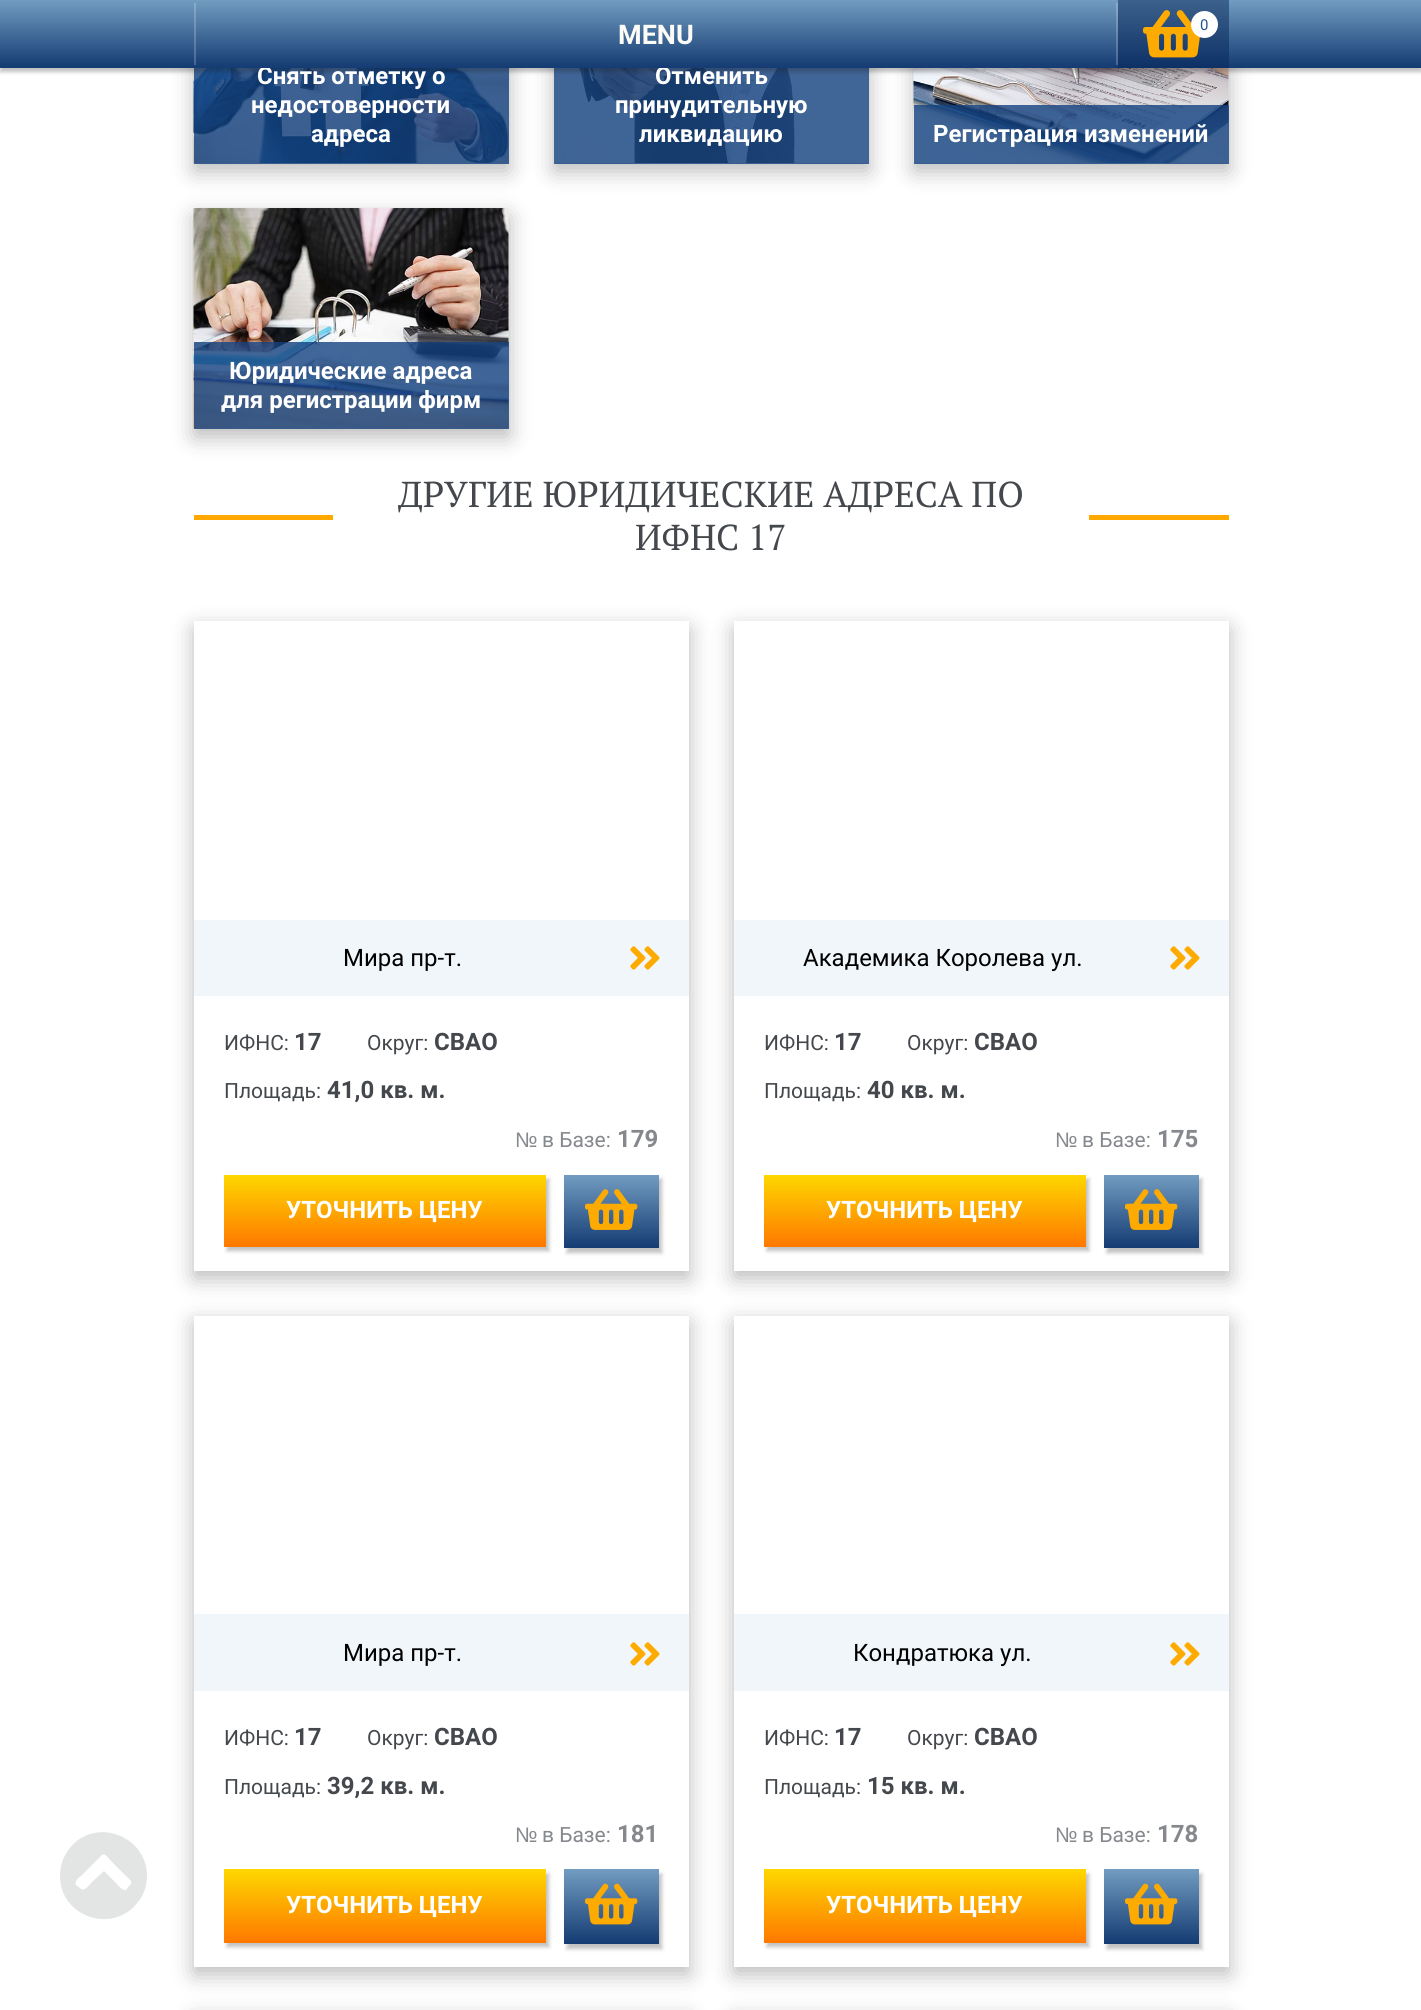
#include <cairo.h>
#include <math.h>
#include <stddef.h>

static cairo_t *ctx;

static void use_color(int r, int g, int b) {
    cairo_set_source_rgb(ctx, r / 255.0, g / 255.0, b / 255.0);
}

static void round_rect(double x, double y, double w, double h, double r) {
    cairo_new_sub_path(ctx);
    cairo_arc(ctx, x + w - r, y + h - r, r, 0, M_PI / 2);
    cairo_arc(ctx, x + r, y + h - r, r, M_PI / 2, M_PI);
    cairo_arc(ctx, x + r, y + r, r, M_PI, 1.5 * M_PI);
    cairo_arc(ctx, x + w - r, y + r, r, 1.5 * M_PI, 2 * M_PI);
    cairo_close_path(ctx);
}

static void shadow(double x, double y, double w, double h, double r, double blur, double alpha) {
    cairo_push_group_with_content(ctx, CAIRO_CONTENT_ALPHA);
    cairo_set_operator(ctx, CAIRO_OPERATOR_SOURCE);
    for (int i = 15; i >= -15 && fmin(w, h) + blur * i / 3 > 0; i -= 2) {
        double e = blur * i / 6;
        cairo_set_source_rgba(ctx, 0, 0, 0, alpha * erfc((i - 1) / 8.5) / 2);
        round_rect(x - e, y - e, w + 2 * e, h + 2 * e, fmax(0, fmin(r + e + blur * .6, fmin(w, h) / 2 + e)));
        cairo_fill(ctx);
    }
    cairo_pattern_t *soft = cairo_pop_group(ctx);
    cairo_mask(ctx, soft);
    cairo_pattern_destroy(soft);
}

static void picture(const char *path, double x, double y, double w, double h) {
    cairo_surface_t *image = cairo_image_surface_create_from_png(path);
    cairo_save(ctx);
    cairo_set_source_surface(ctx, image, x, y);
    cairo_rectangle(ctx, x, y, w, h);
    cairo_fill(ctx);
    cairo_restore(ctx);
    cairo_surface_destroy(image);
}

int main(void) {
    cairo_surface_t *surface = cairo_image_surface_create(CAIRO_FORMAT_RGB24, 1421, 2010);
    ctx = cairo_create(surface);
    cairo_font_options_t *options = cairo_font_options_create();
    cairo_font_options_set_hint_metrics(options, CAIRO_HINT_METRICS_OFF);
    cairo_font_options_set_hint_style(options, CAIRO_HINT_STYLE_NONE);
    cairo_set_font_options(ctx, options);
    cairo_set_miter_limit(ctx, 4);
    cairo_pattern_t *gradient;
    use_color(255, 255, 255);
    cairo_paint(ctx);
    use_color(227, 228, 228);
    cairo_new_path(ctx);
    cairo_move_to(ctx, 60, 1876);
    cairo_curve_to(ctx, 60, 1866, 63, 1857, 69, 1849);
    cairo_curve_to(ctx, 94, 1816, 147, 1835, 147, 1876);
    cairo_curve_to(ctx, 147, 1885, 144, 1895, 138, 1902);
    cairo_curve_to(ctx, 113, 1935, 60, 1917, 60, 1876);
    cairo_close_path(ctx);
    cairo_move_to(ctx, 101, 1856);
    cairo_line_to(ctx, 81, 1876);
    cairo_curve_to(ctx, 79, 1877, 74, 1881, 76, 1885);
    cairo_line_to(ctx, 80, 1888);
    cairo_curve_to(ctx, 84, 1893, 89, 1885, 92, 1882);
    cairo_line_to(ctx, 104, 1871);
    cairo_line_to(ctx, 115, 1882);
    cairo_curve_to(ctx, 117, 1884, 122, 1891, 126, 1890);
    cairo_line_to(ctx, 129, 1886);
    cairo_curve_to(ctx, 134, 1882, 130, 1880, 126, 1876);
    cairo_line_to(ctx, 110, 1860);
    cairo_curve_to(ctx, 108, 1857, 104, 1852, 101, 1856);
    cairo_close_path(ctx);
    cairo_fill(ctx);
    use_color(23, 23, 24);
    shadow(194, -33, 315, 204, 0, 11, 0.3);
    picture("img2.png", 193, 68, 316, 95);
    cairo_set_source_rgba(ctx, 0.078, 0.255, 0.502, 0.8);
    cairo_rectangle(ctx, 194, 68, 315, 96);
    cairo_fill(ctx);
    use_color(23, 23, 24);
    shadow(554, -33, 315, 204, 0, 11, 0.3);
    picture("img3.png", 554, 68, 315, 95);
    cairo_set_source_rgba(ctx, 0.078, 0.255, 0.502, 0.8);
    cairo_rectangle(ctx, 554, 68, 315, 96);
    cairo_fill(ctx);
    use_color(23, 23, 24);
    shadow(914, -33, 315, 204, 0, 11, 0.3);
    picture("img4.png", 913, 68, 316, 95);
    shadow(0, 5, 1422, 67, 0, 2, 0.27);
    cairo_select_font_face(ctx, "Roboto", CAIRO_FONT_SLANT_NORMAL, CAIRO_FONT_WEIGHT_BOLD);
    cairo_set_font_size(ctx, 24);
    use_color(255, 255, 255);
    cairo_move_to(ctx, 257, 84);
    cairo_show_text(ctx, "Снять отметку о");
    cairo_move_to(ctx, 655, 84);
    cairo_show_text(ctx, "Отменить");
    gradient = cairo_pattern_create_linear(711, 68, 711, 0);
    cairo_pattern_add_color_stop_rgba(gradient, 0, 0.078, 0.231, 0.447, 1);
    cairo_pattern_add_color_stop_rgba(gradient, 1, 0.447, 0.612, 0.757, 1);
    cairo_set_source(ctx, gradient);
    cairo_pattern_destroy(gradient);
    cairo_rectangle(ctx, 0, 0, 1421, 68);
    cairo_fill(ctx);
    cairo_set_source_rgba(ctx, 1, 1, 1, 0.2);
    cairo_rectangle(ctx, 194, 3, 2, 62);
    cairo_fill(ctx);
    cairo_set_font_size(ctx, 27);
    use_color(253, 251, 246);
    cairo_move_to(ctx, 618, 44);
    cairo_show_text(ctx, "MENU");
    cairo_set_source_rgba(ctx, 1, 1, 1, 0.2);
    cairo_rectangle(ctx, 1116, 3, 2, 62);
    cairo_fill(ctx);
    gradient = cairo_pattern_create_linear(1173, 68, 1173, 0);
    cairo_pattern_add_color_stop_rgba(gradient, 0, 0.051, 0.192, 0.396, 1);
    cairo_pattern_add_color_stop_rgba(gradient, 1, 0.235, 0.38, 0.549, 1);
    cairo_set_source(ctx, gradient);
    cairo_pattern_destroy(gradient);
    cairo_rectangle(ctx, 1118, 0, 111, 68);
    cairo_fill(ctx);
    picture("img1.png", 1143, 10, 57, 48);
    use_color(255, 255, 255);
    cairo_arc(ctx, 1204.5, 24.5, 13.5, 0, 2 * M_PI);
    cairo_fill(ctx);
    cairo_select_font_face(ctx, "Roboto", CAIRO_FONT_SLANT_NORMAL, CAIRO_FONT_WEIGHT_NORMAL);
    cairo_set_font_size(ctx, 15);
    use_color(33, 86, 148);
    cairo_move_to(ctx, 1200, 30);
    cairo_show_text(ctx, "0");
    cairo_select_font_face(ctx, "Roboto", CAIRO_FONT_SLANT_NORMAL, CAIRO_FONT_WEIGHT_BOLD);
    cairo_set_font_size(ctx, 24);
    use_color(255, 255, 255);
    cairo_move_to(ctx, 251, 113);
    cairo_show_text(ctx, "недостоверности");
    cairo_move_to(ctx, 311, 142);
    cairo_show_text(ctx, "адреса");
    cairo_move_to(ctx, 615, 113);
    cairo_show_text(ctx, "принудительную");
    cairo_move_to(ctx, 639, 142);
    cairo_show_text(ctx, "ликвидацию");
    cairo_set_source_rgba(ctx, 0.078, 0.255, 0.502, 0.8);
    cairo_rectangle(ctx, 914, 105, 315, 59);
    cairo_fill(ctx);
    use_color(255, 255, 255);
    cairo_move_to(ctx, 933, 142);
    cairo_show_text(ctx, "Регистрация изменений");
    use_color(23, 23, 24);
    shadow(194, 216, 315, 221, 0, 11, 0.3);
    picture("img5.png", 193, 208, 316, 221);
    cairo_set_source_rgba(ctx, 0.078, 0.255, 0.502, 0.8);
    cairo_rectangle(ctx, 194, 342, 315, 87);
    cairo_fill(ctx);
    use_color(255, 255, 255);
    cairo_move_to(ctx, 229, 379);
    cairo_show_text(ctx, "Юридические адреса");
    cairo_move_to(ctx, 221, 408);
    cairo_show_text(ctx, "для регистрации фирм");
    cairo_select_font_face(ctx, "PT Serif", CAIRO_FONT_SLANT_NORMAL, CAIRO_FONT_WEIGHT_NORMAL);
    cairo_set_font_size(ctx, 36);
    use_color(68, 72, 77);
    cairo_move_to(ctx, 398, 507);
    cairo_show_text(ctx, "ДРУГИЕ ЮРИДИЧЕСКИЕ АДРЕСА ПО");
    use_color(254, 168, 0);
    cairo_rectangle(ctx, 194, 515, 139, 5);
    cairo_fill(ctx);
    cairo_rectangle(ctx, 1089, 515, 140, 5);
    cairo_fill(ctx);
    use_color(68, 72, 77);
    cairo_move_to(ctx, 635, 550);
    cairo_show_text(ctx, "ИФНС 17");
    use_color(23, 23, 24);
    shadow(194, 629, 495, 649, 0, 11, 0.3);
    use_color(255, 255, 255);
    cairo_rectangle(ctx, 194, 621, 495, 650);
    cairo_fill(ctx);
    use_color(241, 246, 250);
    cairo_rectangle(ctx, 194, 920, 495, 76);
    cairo_fill(ctx);
    cairo_select_font_face(ctx, "Roboto", CAIRO_FONT_SLANT_NORMAL, CAIRO_FONT_WEIGHT_NORMAL);
    cairo_set_font_size(ctx, 24);
    use_color(0, 0, 0);
    cairo_move_to(ctx, 343, 966);
    cairo_show_text(ctx, "Мира пр-т.");
    picture("img6.png", 630, 946, 30, 24);
    cairo_set_font_size(ctx, 21);
    use_color(68, 72, 77);
    cairo_move_to(ctx, 224, 1050);
    cairo_show_text(ctx, "ИФНС:");
    cairo_select_font_face(ctx, "Roboto", CAIRO_FONT_SLANT_NORMAL, CAIRO_FONT_WEIGHT_BOLD);
    cairo_set_font_size(ctx, 24);
    cairo_move_to(ctx, 294, 1050);
    cairo_show_text(ctx, "17");
    cairo_select_font_face(ctx, "Roboto", CAIRO_FONT_SLANT_NORMAL, CAIRO_FONT_WEIGHT_NORMAL);
    cairo_set_font_size(ctx, 21);
    cairo_move_to(ctx, 367, 1050);
    cairo_show_text(ctx, "Округ:");
    cairo_select_font_face(ctx, "Roboto", CAIRO_FONT_SLANT_NORMAL, CAIRO_FONT_WEIGHT_BOLD);
    cairo_set_font_size(ctx, 24);
    cairo_move_to(ctx, 434, 1050);
    cairo_show_text(ctx, "СВАО");
    cairo_select_font_face(ctx, "Roboto", CAIRO_FONT_SLANT_NORMAL, CAIRO_FONT_WEIGHT_NORMAL);
    cairo_set_font_size(ctx, 21);
    cairo_move_to(ctx, 224, 1098);
    cairo_show_text(ctx, "Площадь:");
    cairo_select_font_face(ctx, "Roboto", CAIRO_FONT_SLANT_NORMAL, CAIRO_FONT_WEIGHT_BOLD);
    cairo_set_font_size(ctx, 24);
    cairo_move_to(ctx, 327, 1098);
    cairo_show_text(ctx, "41,0 кв. м.");
    cairo_select_font_face(ctx, "Liberation Sans", CAIRO_FONT_SLANT_NORMAL, CAIRO_FONT_WEIGHT_NORMAL);
    cairo_set_font_size(ctx, 21);
    use_color(133, 136, 140);
    cairo_move_to(ctx, 515, 1147);
    cairo_show_text(ctx, "№");
    cairo_select_font_face(ctx, "Roboto", CAIRO_FONT_SLANT_NORMAL, CAIRO_FONT_WEIGHT_NORMAL);
    cairo_move_to(ctx, 542, 1147);
    cairo_show_text(ctx, "в Базе:");
    cairo_select_font_face(ctx, "Roboto", CAIRO_FONT_SLANT_NORMAL, CAIRO_FONT_WEIGHT_BOLD);
    cairo_set_font_size(ctx, 24);
    cairo_move_to(ctx, 617, 1147);
    cairo_show_text(ctx, "179");
    use_color(23, 23, 24);
    shadow(227, 1179, 322, 72, 0, 2, 0.27);
    gradient = cairo_pattern_create_linear(385, 1247, 385, 1175);
    cairo_pattern_add_color_stop_rgba(gradient, 0, 0.996, 0.471, 0, 1);
    cairo_pattern_add_color_stop_rgba(gradient, 1, 0.996, 0.843, 0, 1);
    cairo_set_source(ctx, gradient);
    cairo_pattern_destroy(gradient);
    cairo_rectangle(ctx, 224, 1175, 322, 72);
    cairo_fill(ctx);
    use_color(255, 255, 255);
    cairo_move_to(ctx, 286, 1218);
    cairo_show_text(ctx, "УТОЧНИТЬ ЦЕНУ");
    use_color(23, 23, 24);
    shadow(567, 1179, 95, 74, 0, 2, 0.27);
    gradient = cairo_pattern_create_linear(611, 1248, 611, 1175);
    cairo_pattern_add_color_stop_rgba(gradient, 0, 0.078, 0.231, 0.447, 1);
    cairo_pattern_add_color_stop_rgba(gradient, 1, 0.447, 0.612, 0.757, 1);
    cairo_set_source(ctx, gradient);
    cairo_pattern_destroy(gradient);
    cairo_rectangle(ctx, 564, 1175, 95, 73);
    cairo_fill(ctx);
    picture("img7.png", 585, 1189, 53, 41);
    use_color(23, 23, 24);
    shadow(734, 629, 495, 649, 0, 11, 0.3);
    use_color(255, 255, 255);
    cairo_rectangle(ctx, 734, 621, 495, 650);
    cairo_fill(ctx);
    use_color(241, 246, 250);
    cairo_rectangle(ctx, 734, 920, 495, 76);
    cairo_fill(ctx);
    cairo_select_font_face(ctx, "Roboto", CAIRO_FONT_SLANT_NORMAL, CAIRO_FONT_WEIGHT_NORMAL);
    use_color(0, 0, 0);
    cairo_move_to(ctx, 803, 966);
    cairo_show_text(ctx, "Академика Королева ул.");
    picture("img6.png", 1170, 946, 30, 24);
    cairo_set_font_size(ctx, 21);
    use_color(68, 72, 77);
    cairo_move_to(ctx, 764, 1050);
    cairo_show_text(ctx, "ИФНС:");
    cairo_select_font_face(ctx, "Roboto", CAIRO_FONT_SLANT_NORMAL, CAIRO_FONT_WEIGHT_BOLD);
    cairo_set_font_size(ctx, 24);
    cairo_move_to(ctx, 834, 1050);
    cairo_show_text(ctx, "17");
    cairo_select_font_face(ctx, "Roboto", CAIRO_FONT_SLANT_NORMAL, CAIRO_FONT_WEIGHT_NORMAL);
    cairo_set_font_size(ctx, 21);
    cairo_move_to(ctx, 907, 1050);
    cairo_show_text(ctx, "Округ:");
    cairo_select_font_face(ctx, "Roboto", CAIRO_FONT_SLANT_NORMAL, CAIRO_FONT_WEIGHT_BOLD);
    cairo_set_font_size(ctx, 24);
    cairo_move_to(ctx, 974, 1050);
    cairo_show_text(ctx, "СВАО");
    cairo_select_font_face(ctx, "Roboto", CAIRO_FONT_SLANT_NORMAL, CAIRO_FONT_WEIGHT_NORMAL);
    cairo_set_font_size(ctx, 21);
    cairo_move_to(ctx, 764, 1098);
    cairo_show_text(ctx, "Площадь:");
    cairo_select_font_face(ctx, "Roboto", CAIRO_FONT_SLANT_NORMAL, CAIRO_FONT_WEIGHT_BOLD);
    cairo_set_font_size(ctx, 24);
    cairo_move_to(ctx, 867, 1098);
    cairo_show_text(ctx, "40 кв. м.");
    cairo_select_font_face(ctx, "Liberation Sans", CAIRO_FONT_SLANT_NORMAL, CAIRO_FONT_WEIGHT_NORMAL);
    cairo_set_font_size(ctx, 21);
    use_color(133, 136, 140);
    cairo_move_to(ctx, 1055, 1147);
    cairo_show_text(ctx, "№");
    cairo_select_font_face(ctx, "Roboto", CAIRO_FONT_SLANT_NORMAL, CAIRO_FONT_WEIGHT_NORMAL);
    cairo_move_to(ctx, 1082, 1147);
    cairo_show_text(ctx, "в Базе:");
    cairo_select_font_face(ctx, "Roboto", CAIRO_FONT_SLANT_NORMAL, CAIRO_FONT_WEIGHT_BOLD);
    cairo_set_font_size(ctx, 24);
    cairo_move_to(ctx, 1157, 1147);
    cairo_show_text(ctx, "175");
    use_color(23, 23, 24);
    shadow(767, 1179, 322, 72, 0, 2, 0.27);
    gradient = cairo_pattern_create_linear(925, 1247, 925, 1175);
    cairo_pattern_add_color_stop_rgba(gradient, 0, 0.996, 0.471, 0, 1);
    cairo_pattern_add_color_stop_rgba(gradient, 1, 0.996, 0.843, 0, 1);
    cairo_set_source(ctx, gradient);
    cairo_pattern_destroy(gradient);
    cairo_rectangle(ctx, 764, 1175, 322, 72);
    cairo_fill(ctx);
    use_color(255, 255, 255);
    cairo_move_to(ctx, 826, 1218);
    cairo_show_text(ctx, "УТОЧНИТЬ ЦЕНУ");
    use_color(23, 23, 24);
    shadow(1107, 1179, 95, 74, 0, 2, 0.27);
    gradient = cairo_pattern_create_linear(1151, 1248, 1151, 1175);
    cairo_pattern_add_color_stop_rgba(gradient, 0, 0.078, 0.231, 0.447, 1);
    cairo_pattern_add_color_stop_rgba(gradient, 1, 0.447, 0.612, 0.757, 1);
    cairo_set_source(ctx, gradient);
    cairo_pattern_destroy(gradient);
    cairo_rectangle(ctx, 1104, 1175, 95, 73);
    cairo_fill(ctx);
    picture("img7.png", 1125, 1189, 53, 41);
    use_color(23, 23, 24);
    shadow(194, 1323, 495, 651, 0, 11, 0.3);
    use_color(255, 255, 255);
    cairo_rectangle(ctx, 194, 1316, 495, 651);
    cairo_fill(ctx);
    use_color(241, 246, 250);
    cairo_rectangle(ctx, 194, 1614, 495, 77);
    cairo_fill(ctx);
    cairo_select_font_face(ctx, "Roboto", CAIRO_FONT_SLANT_NORMAL, CAIRO_FONT_WEIGHT_NORMAL);
    use_color(0, 0, 0);
    cairo_move_to(ctx, 343, 1661);
    cairo_show_text(ctx, "Мира пр-т.");
    picture("img6.png", 630, 1642, 30, 24);
    cairo_set_font_size(ctx, 21);
    use_color(68, 72, 77);
    cairo_move_to(ctx, 224, 1745);
    cairo_show_text(ctx, "ИФНС:");
    cairo_select_font_face(ctx, "Roboto", CAIRO_FONT_SLANT_NORMAL, CAIRO_FONT_WEIGHT_BOLD);
    cairo_set_font_size(ctx, 24);
    cairo_move_to(ctx, 294, 1745);
    cairo_show_text(ctx, "17");
    cairo_select_font_face(ctx, "Roboto", CAIRO_FONT_SLANT_NORMAL, CAIRO_FONT_WEIGHT_NORMAL);
    cairo_set_font_size(ctx, 21);
    cairo_move_to(ctx, 367, 1745);
    cairo_show_text(ctx, "Округ:");
    cairo_select_font_face(ctx, "Roboto", CAIRO_FONT_SLANT_NORMAL, CAIRO_FONT_WEIGHT_BOLD);
    cairo_set_font_size(ctx, 24);
    cairo_move_to(ctx, 434, 1745);
    cairo_show_text(ctx, "СВАО");
    cairo_select_font_face(ctx, "Roboto", CAIRO_FONT_SLANT_NORMAL, CAIRO_FONT_WEIGHT_NORMAL);
    cairo_set_font_size(ctx, 21);
    cairo_move_to(ctx, 224, 1794);
    cairo_show_text(ctx, "Площадь:");
    cairo_select_font_face(ctx, "Roboto", CAIRO_FONT_SLANT_NORMAL, CAIRO_FONT_WEIGHT_BOLD);
    cairo_set_font_size(ctx, 24);
    cairo_move_to(ctx, 327, 1794);
    cairo_show_text(ctx, "39,2 кв. м.");
    cairo_select_font_face(ctx, "Liberation Sans", CAIRO_FONT_SLANT_NORMAL, CAIRO_FONT_WEIGHT_NORMAL);
    cairo_set_font_size(ctx, 21);
    use_color(133, 136, 140);
    cairo_move_to(ctx, 515, 1842);
    cairo_show_text(ctx, "№");
    cairo_select_font_face(ctx, "Roboto", CAIRO_FONT_SLANT_NORMAL, CAIRO_FONT_WEIGHT_NORMAL);
    cairo_move_to(ctx, 542, 1842);
    cairo_show_text(ctx, "в Базе:");
    cairo_select_font_face(ctx, "Roboto", CAIRO_FONT_SLANT_NORMAL, CAIRO_FONT_WEIGHT_BOLD);
    cairo_set_font_size(ctx, 24);
    cairo_move_to(ctx, 617, 1842);
    cairo_show_text(ctx, "181");
    use_color(23, 23, 24);
    shadow(227, 1874, 322, 73, 0, 2, 0.27);
    gradient = cairo_pattern_create_linear(385, 1943, 385, 1869);
    cairo_pattern_add_color_stop_rgba(gradient, 0, 0.996, 0.471, 0, 1);
    cairo_pattern_add_color_stop_rgba(gradient, 1, 0.996, 0.843, 0, 1);
    cairo_set_source(ctx, gradient);
    cairo_pattern_destroy(gradient);
    cairo_rectangle(ctx, 224, 1869, 322, 74);
    cairo_fill(ctx);
    use_color(255, 255, 255);
    cairo_move_to(ctx, 286, 1913);
    cairo_show_text(ctx, "УТОЧНИТЬ ЦЕНУ");
    use_color(23, 23, 24);
    shadow(567, 1874, 95, 75, 0, 2, 0.27);
    gradient = cairo_pattern_create_linear(611, 1944, 611, 1869);
    cairo_pattern_add_color_stop_rgba(gradient, 0, 0.078, 0.231, 0.447, 1);
    cairo_pattern_add_color_stop_rgba(gradient, 1, 0.447, 0.612, 0.757, 1);
    cairo_set_source(ctx, gradient);
    cairo_pattern_destroy(gradient);
    cairo_rectangle(ctx, 564, 1869, 95, 75);
    cairo_fill(ctx);
    picture("img8.png", 585, 1883, 53, 42);
    use_color(23, 23, 24);
    shadow(734, 1323, 495, 651, 0, 11, 0.3);
    use_color(255, 255, 255);
    cairo_rectangle(ctx, 734, 1316, 495, 651);
    cairo_fill(ctx);
    use_color(241, 246, 250);
    cairo_rectangle(ctx, 734, 1614, 495, 77);
    cairo_fill(ctx);
    cairo_select_font_face(ctx, "Roboto", CAIRO_FONT_SLANT_NORMAL, CAIRO_FONT_WEIGHT_NORMAL);
    use_color(0, 0, 0);
    cairo_move_to(ctx, 853, 1661);
    cairo_show_text(ctx, "Кондратюка ул.");
    picture("img6.png", 1170, 1642, 30, 24);
    cairo_set_font_size(ctx, 21);
    use_color(68, 72, 77);
    cairo_move_to(ctx, 764, 1745);
    cairo_show_text(ctx, "ИФНС:");
    cairo_select_font_face(ctx, "Roboto", CAIRO_FONT_SLANT_NORMAL, CAIRO_FONT_WEIGHT_BOLD);
    cairo_set_font_size(ctx, 24);
    cairo_move_to(ctx, 834, 1745);
    cairo_show_text(ctx, "17");
    cairo_select_font_face(ctx, "Roboto", CAIRO_FONT_SLANT_NORMAL, CAIRO_FONT_WEIGHT_NORMAL);
    cairo_set_font_size(ctx, 21);
    cairo_move_to(ctx, 907, 1745);
    cairo_show_text(ctx, "Округ:");
    cairo_select_font_face(ctx, "Roboto", CAIRO_FONT_SLANT_NORMAL, CAIRO_FONT_WEIGHT_BOLD);
    cairo_set_font_size(ctx, 24);
    cairo_move_to(ctx, 974, 1745);
    cairo_show_text(ctx, "СВАО");
    cairo_select_font_face(ctx, "Roboto", CAIRO_FONT_SLANT_NORMAL, CAIRO_FONT_WEIGHT_NORMAL);
    cairo_set_font_size(ctx, 21);
    cairo_move_to(ctx, 764, 1794);
    cairo_show_text(ctx, "Площадь:");
    cairo_select_font_face(ctx, "Roboto", CAIRO_FONT_SLANT_NORMAL, CAIRO_FONT_WEIGHT_BOLD);
    cairo_set_font_size(ctx, 24);
    cairo_move_to(ctx, 867, 1794);
    cairo_show_text(ctx, "15 кв. м.");
    cairo_select_font_face(ctx, "Liberation Sans", CAIRO_FONT_SLANT_NORMAL, CAIRO_FONT_WEIGHT_NORMAL);
    cairo_set_font_size(ctx, 21);
    use_color(133, 136, 140);
    cairo_move_to(ctx, 1055, 1842);
    cairo_show_text(ctx, "№");
    cairo_select_font_face(ctx, "Roboto", CAIRO_FONT_SLANT_NORMAL, CAIRO_FONT_WEIGHT_NORMAL);
    cairo_move_to(ctx, 1082, 1842);
    cairo_show_text(ctx, "в Базе:");
    cairo_select_font_face(ctx, "Roboto", CAIRO_FONT_SLANT_NORMAL, CAIRO_FONT_WEIGHT_BOLD);
    cairo_set_font_size(ctx, 24);
    cairo_move_to(ctx, 1157, 1842);
    cairo_show_text(ctx, "178");
    use_color(23, 23, 24);
    shadow(767, 1874, 322, 73, 0, 2, 0.27);
    gradient = cairo_pattern_create_linear(925, 1943, 925, 1869);
    cairo_pattern_add_color_stop_rgba(gradient, 0, 0.996, 0.471, 0, 1);
    cairo_pattern_add_color_stop_rgba(gradient, 1, 0.996, 0.843, 0, 1);
    cairo_set_source(ctx, gradient);
    cairo_pattern_destroy(gradient);
    cairo_rectangle(ctx, 764, 1869, 322, 74);
    cairo_fill(ctx);
    use_color(255, 255, 255);
    cairo_move_to(ctx, 826, 1913);
    cairo_show_text(ctx, "УТОЧНИТЬ ЦЕНУ");
    use_color(23, 23, 24);
    shadow(1107, 1874, 95, 75, 0, 2, 0.27);
    gradient = cairo_pattern_create_linear(1151, 1944, 1151, 1869);
    cairo_pattern_add_color_stop_rgba(gradient, 0, 0.078, 0.231, 0.447, 1);
    cairo_pattern_add_color_stop_rgba(gradient, 1, 0.447, 0.612, 0.757, 1);
    cairo_set_source(ctx, gradient);
    cairo_pattern_destroy(gradient);
    cairo_rectangle(ctx, 1104, 1869, 95, 75);
    cairo_fill(ctx);
    picture("img8.png", 1125, 1883, 53, 42);
    use_color(23, 23, 24);
    shadow(194, 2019, 495, 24, 0, 11, 0.3);
    shadow(734, 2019, 495, 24, 0, 11, 0.3);
    cairo_surface_write_to_png(surface, "result.png");
    cairo_font_options_destroy(options);
    cairo_destroy(ctx);
    cairo_surface_destroy(surface);
    return 0;
}
